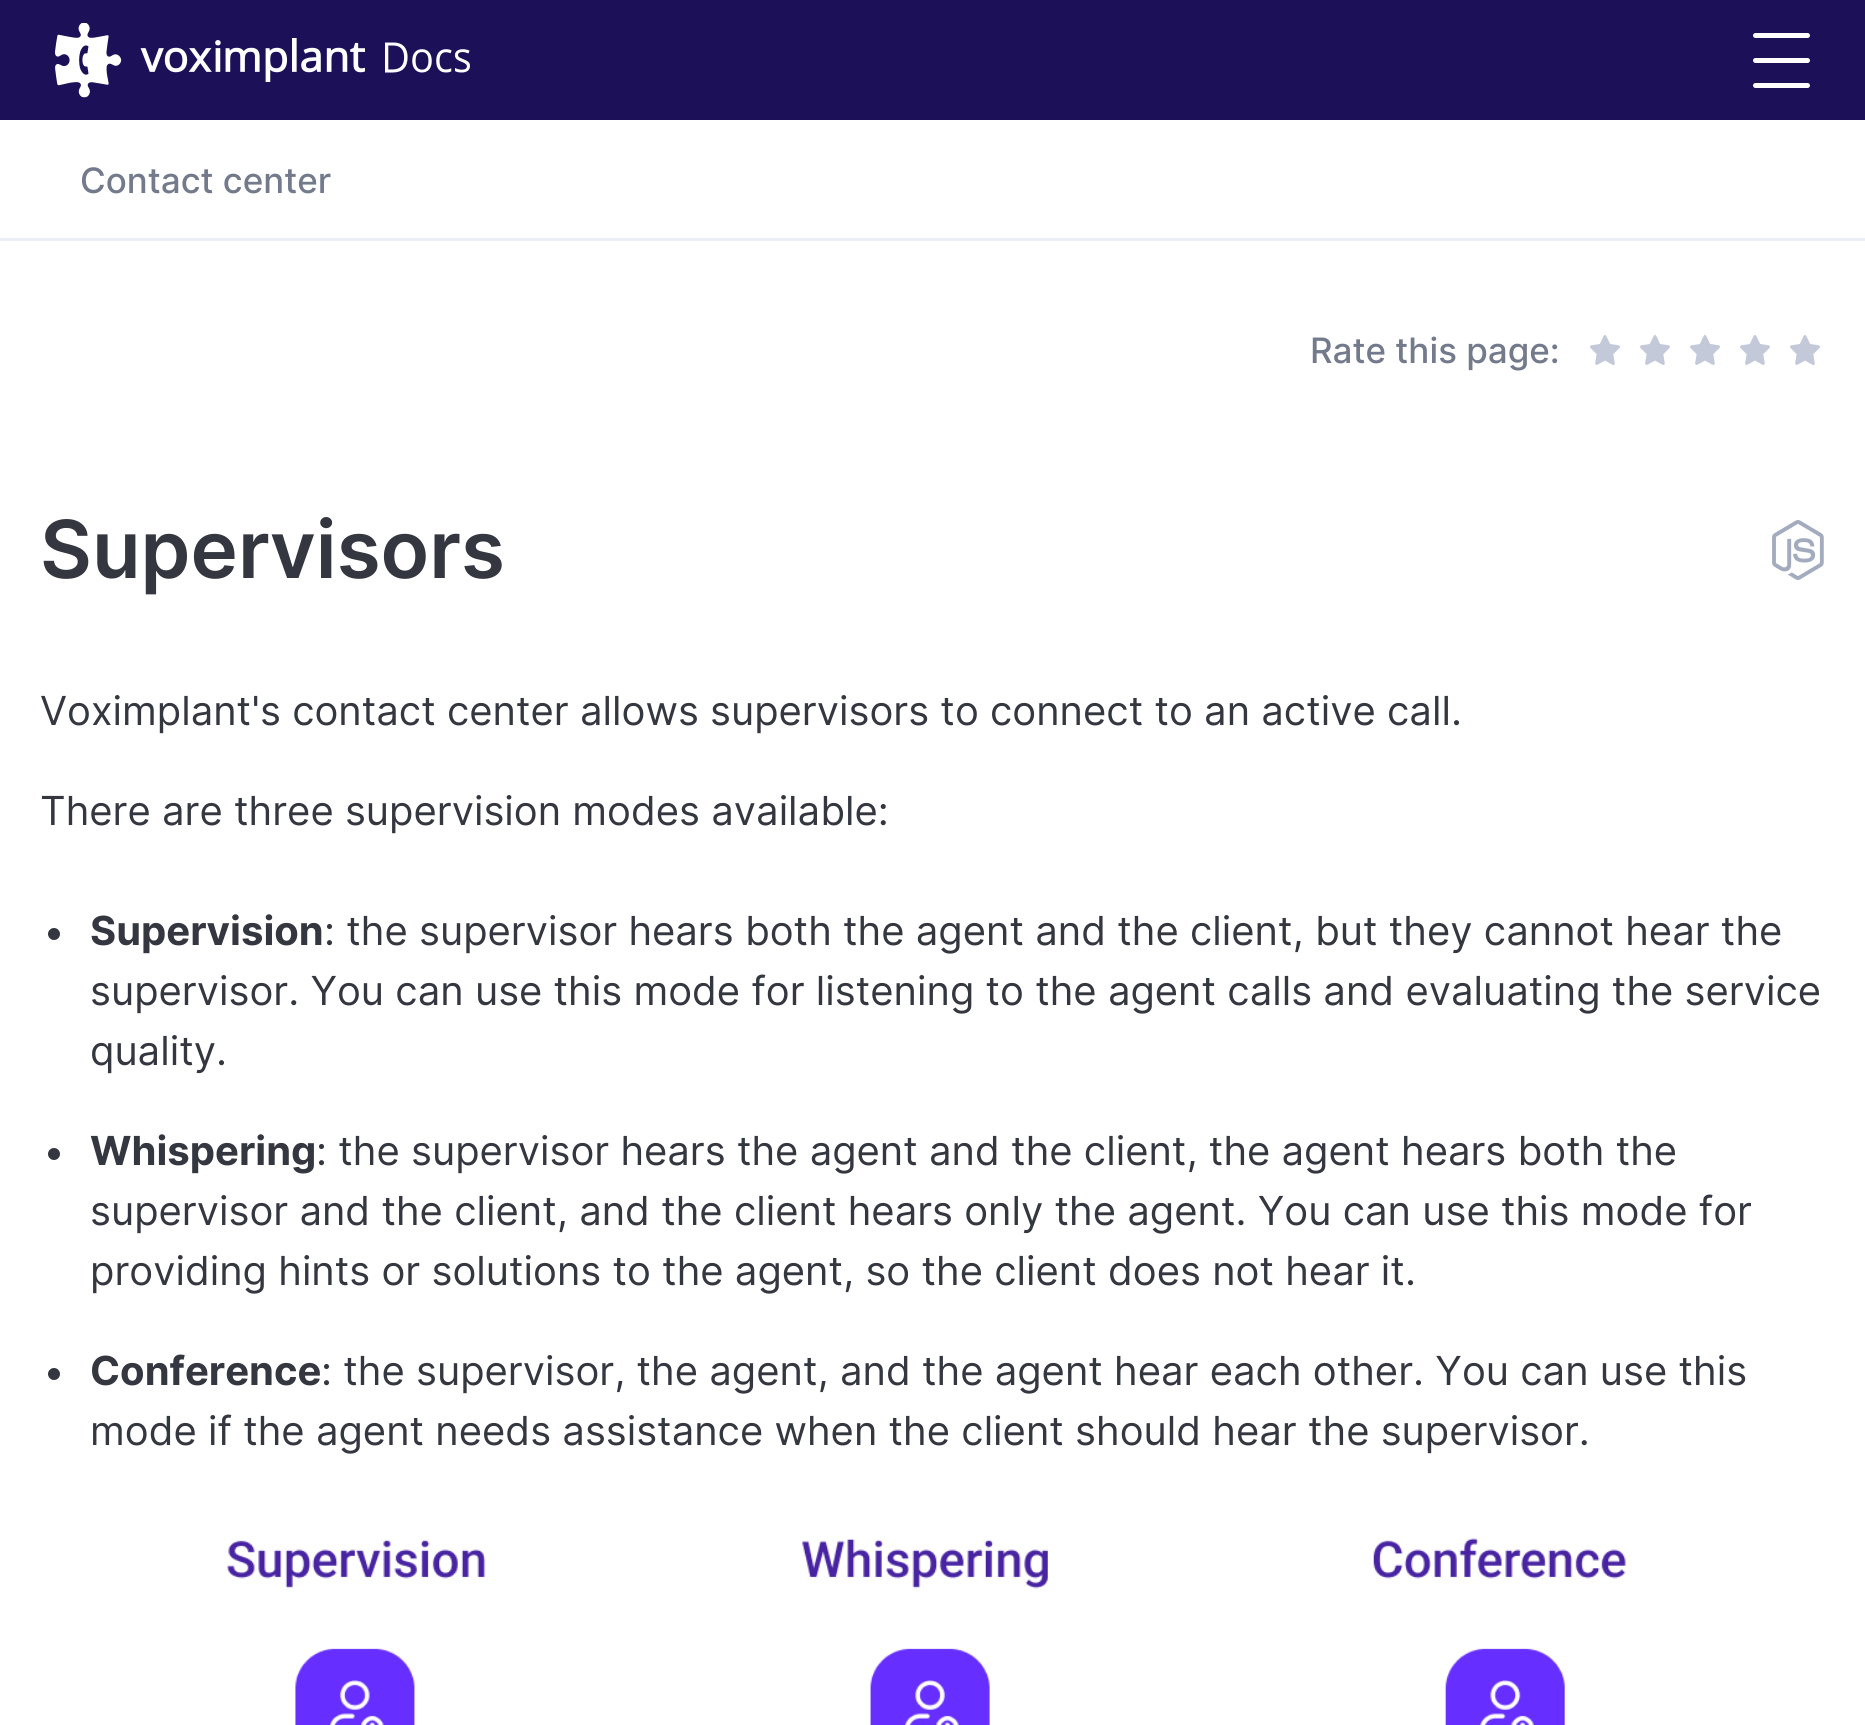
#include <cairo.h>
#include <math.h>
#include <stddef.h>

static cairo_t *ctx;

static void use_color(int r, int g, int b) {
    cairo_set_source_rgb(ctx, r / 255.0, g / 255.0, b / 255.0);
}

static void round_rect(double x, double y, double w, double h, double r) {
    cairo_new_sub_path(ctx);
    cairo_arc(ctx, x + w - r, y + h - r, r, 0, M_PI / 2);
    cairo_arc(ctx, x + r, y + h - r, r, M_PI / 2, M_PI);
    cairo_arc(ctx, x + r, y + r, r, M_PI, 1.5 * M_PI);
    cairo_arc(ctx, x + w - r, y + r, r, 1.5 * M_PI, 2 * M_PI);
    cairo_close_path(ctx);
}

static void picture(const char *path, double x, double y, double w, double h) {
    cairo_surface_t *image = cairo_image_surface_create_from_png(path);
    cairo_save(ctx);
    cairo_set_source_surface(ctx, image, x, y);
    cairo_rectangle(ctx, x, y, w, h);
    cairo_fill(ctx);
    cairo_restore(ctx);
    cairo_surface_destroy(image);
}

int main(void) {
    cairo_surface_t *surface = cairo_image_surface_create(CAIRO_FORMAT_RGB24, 1865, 1725);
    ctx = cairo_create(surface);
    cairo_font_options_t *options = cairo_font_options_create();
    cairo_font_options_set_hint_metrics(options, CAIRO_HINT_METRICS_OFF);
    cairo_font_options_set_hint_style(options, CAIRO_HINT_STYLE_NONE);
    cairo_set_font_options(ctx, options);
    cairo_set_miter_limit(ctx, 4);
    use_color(255, 255, 255);
    cairo_paint(ctx);
    use_color(28, 16, 89);
    cairo_rectangle(ctx, 0, 0, 1865, 120);
    cairo_fill(ctx);
    picture("img1.png", 55, 23, 415, 75);
    use_color(255, 255, 255);
    round_rect(1753, 83, 57, 5, 2.5);
    cairo_fill(ctx);
    round_rect(1753, 33, 57, 5, 2.5);
    cairo_fill(ctx);
    round_rect(1753, 58, 57, 5, 2.5);
    cairo_fill(ctx);
    use_color(235, 238, 242);
    cairo_rectangle(ctx, 0, 238, 1865, 3);
    cairo_fill(ctx);
    cairo_select_font_face(ctx, "Inter Medium", CAIRO_FONT_SLANT_NORMAL, CAIRO_FONT_WEIGHT_NORMAL);
    cairo_set_font_size(ctx, 35);
    use_color(114, 122, 140);
    cairo_move_to(ctx, 80, 193);
    cairo_show_text(ctx, "Contact center");
    cairo_move_to(ctx, 1310, 363);
    cairo_show_text(ctx, "Rate this page:");
    picture("img2.png", 1590, 335, 30, 30);
    picture("img2.png", 1640, 335, 30, 30);
    picture("img2.png", 1690, 335, 30, 30);
    picture("img2.png", 1740, 335, 30, 30);
    picture("img2.png", 1790, 335, 30, 30);
    cairo_select_font_face(ctx, "Inter SemiBold", CAIRO_FONT_SLANT_NORMAL, CAIRO_FONT_WEIGHT_NORMAL);
    cairo_set_font_size(ctx, 80);
    use_color(52, 55, 64);
    cairo_move_to(ctx, 40, 578);
    cairo_show_text(ctx, "Supervisors");
    picture("img3.png", 1772, 520, 52, 60);
    cairo_select_font_face(ctx, "Inter", CAIRO_FONT_SLANT_NORMAL, CAIRO_FONT_WEIGHT_NORMAL);
    cairo_set_font_size(ctx, 40);
    cairo_move_to(ctx, 40, 725);
    cairo_show_text(ctx, "Voximplant's contact center allows supervisors to connect to an active call.");
    cairo_move_to(ctx, 40, 825);
    cairo_show_text(ctx, "There are three supervision modes available:");
    cairo_new_path(ctx);
    cairo_arc(ctx, 54, 934, 6, 0, 2 * M_PI);
    cairo_fill(ctx);
    cairo_select_font_face(ctx, "Inter", CAIRO_FONT_SLANT_NORMAL, CAIRO_FONT_WEIGHT_BOLD);
    cairo_move_to(ctx, 90, 945);
    cairo_show_text(ctx, "Supervision");
    cairo_select_font_face(ctx, "Inter", CAIRO_FONT_SLANT_NORMAL, CAIRO_FONT_WEIGHT_NORMAL);
    cairo_move_to(ctx, 324, 945);
    cairo_show_text(ctx, ": the supervisor hears both the agent and the client, but they cannot hear the");
    cairo_move_to(ctx, 90, 1005);
    cairo_show_text(ctx, "supervisor. You can use this mode for listening to the agent calls and evaluating the service");
    cairo_move_to(ctx, 90, 1065);
    cairo_show_text(ctx, "quality.");
    cairo_new_path(ctx);
    cairo_arc(ctx, 54, 1154, 6, 0, 2 * M_PI);
    cairo_fill(ctx);
    cairo_select_font_face(ctx, "Inter", CAIRO_FONT_SLANT_NORMAL, CAIRO_FONT_WEIGHT_BOLD);
    cairo_move_to(ctx, 90, 1165);
    cairo_show_text(ctx, "Whispering");
    cairo_select_font_face(ctx, "Inter", CAIRO_FONT_SLANT_NORMAL, CAIRO_FONT_WEIGHT_NORMAL);
    cairo_move_to(ctx, 316, 1165);
    cairo_show_text(ctx, ": the supervisor hears the agent and the client, the agent hears both the");
    cairo_move_to(ctx, 90, 1225);
    cairo_show_text(ctx, "supervisor and the client, and the client hears only the agent. You can use this mode for");
    cairo_move_to(ctx, 90, 1285);
    cairo_show_text(ctx, "providing hints or solutions to the agent, so the client does not hear it.");
    cairo_new_path(ctx);
    cairo_arc(ctx, 54, 1374, 6, 0, 2 * M_PI);
    cairo_fill(ctx);
    cairo_select_font_face(ctx, "Inter", CAIRO_FONT_SLANT_NORMAL, CAIRO_FONT_WEIGHT_BOLD);
    cairo_move_to(ctx, 90, 1385);
    cairo_show_text(ctx, "Conference");
    cairo_select_font_face(ctx, "Inter", CAIRO_FONT_SLANT_NORMAL, CAIRO_FONT_WEIGHT_NORMAL);
    cairo_move_to(ctx, 321, 1385);
    cairo_show_text(ctx, ": the supervisor, the agent, and the agent hear each other. You can use this");
    cairo_move_to(ctx, 90, 1445);
    cairo_show_text(ctx, "mode if the agent needs assistance when the client should hear the supervisor.");
    picture("img4.png", 227, 1538, 1399, 187);
    cairo_surface_write_to_png(surface, "result.png");
    cairo_font_options_destroy(options);
    cairo_destroy(ctx);
    cairo_surface_destroy(surface);
    return 0;
}
